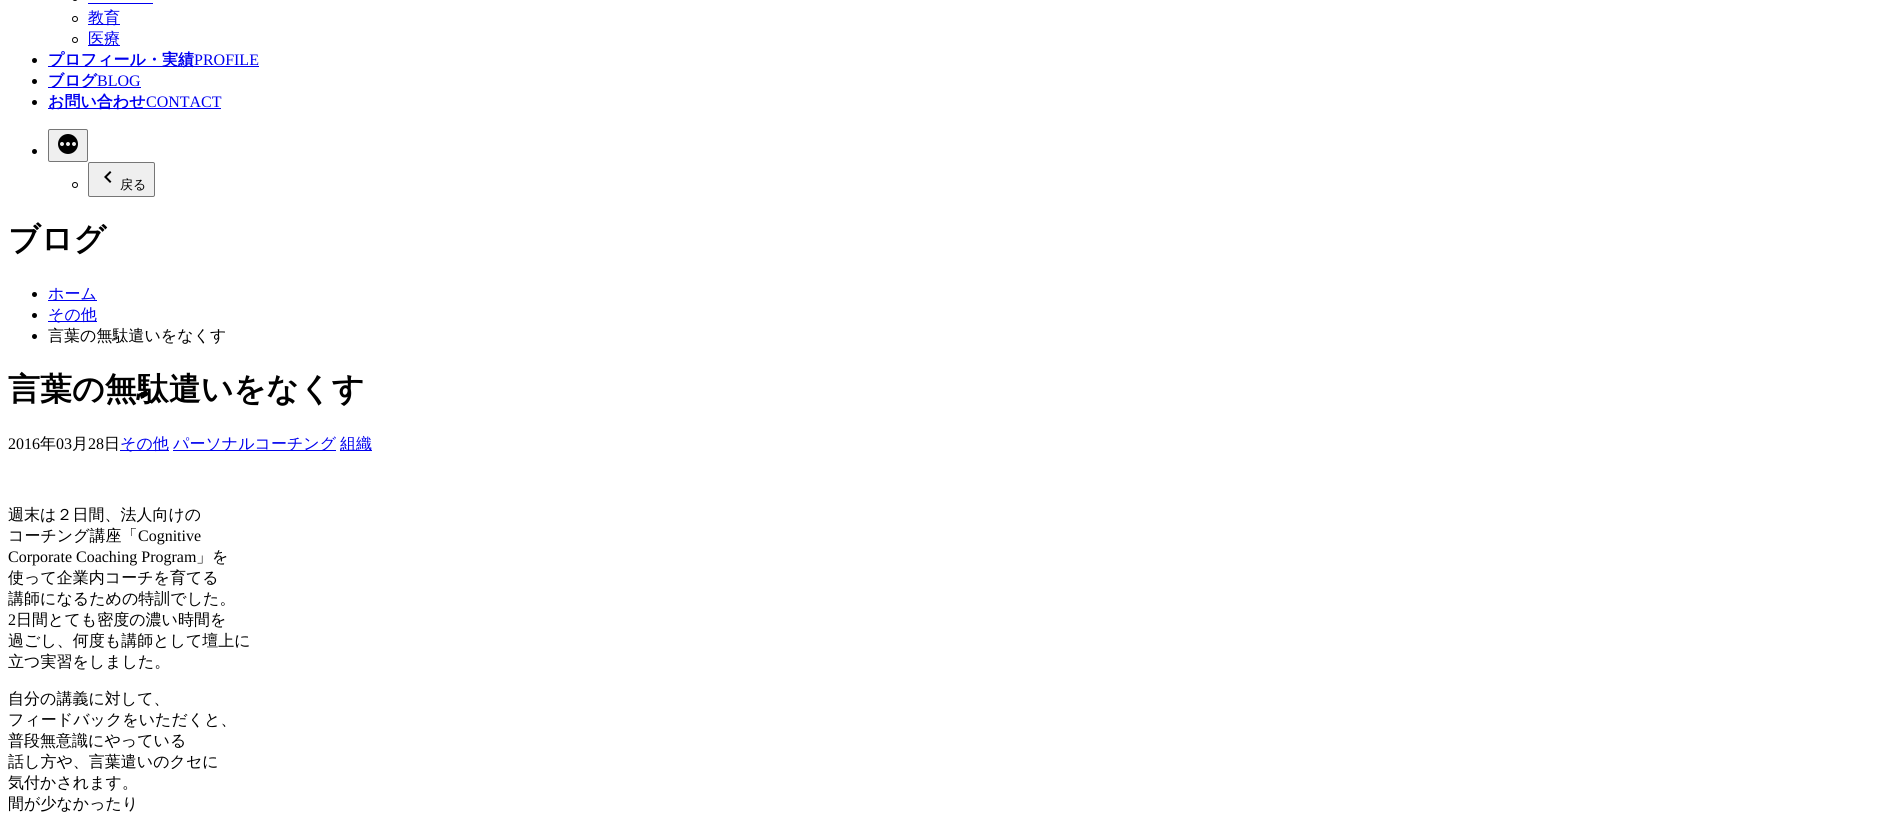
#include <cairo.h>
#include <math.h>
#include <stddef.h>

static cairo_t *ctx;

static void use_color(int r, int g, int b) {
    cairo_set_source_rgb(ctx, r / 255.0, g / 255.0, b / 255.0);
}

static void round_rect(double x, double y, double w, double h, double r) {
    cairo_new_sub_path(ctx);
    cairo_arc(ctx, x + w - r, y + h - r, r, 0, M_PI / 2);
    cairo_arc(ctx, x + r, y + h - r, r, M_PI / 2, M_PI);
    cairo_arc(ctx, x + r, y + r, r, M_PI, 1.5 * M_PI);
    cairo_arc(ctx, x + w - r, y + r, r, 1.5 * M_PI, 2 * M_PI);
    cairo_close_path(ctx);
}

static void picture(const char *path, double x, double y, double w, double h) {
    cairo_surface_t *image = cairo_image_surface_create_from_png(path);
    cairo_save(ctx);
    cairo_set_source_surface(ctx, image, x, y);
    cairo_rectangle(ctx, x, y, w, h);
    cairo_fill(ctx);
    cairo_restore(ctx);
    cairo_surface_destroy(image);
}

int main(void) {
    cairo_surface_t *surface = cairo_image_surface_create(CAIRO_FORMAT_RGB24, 1902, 823);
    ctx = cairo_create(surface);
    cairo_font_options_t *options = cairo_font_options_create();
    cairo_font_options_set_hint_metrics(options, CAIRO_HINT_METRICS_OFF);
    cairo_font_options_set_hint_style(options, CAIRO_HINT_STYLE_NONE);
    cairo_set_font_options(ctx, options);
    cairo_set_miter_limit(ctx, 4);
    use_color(255, 255, 255);
    cairo_paint(ctx);
    round_rect(72.5, -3.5, 5, 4, 2.5);
    use_color(0, 0, 0);
    cairo_set_line_width(ctx, 1);
    cairo_stroke(ctx);
    use_color(0, 0, 238);
    cairo_rectangle(ctx, 88, 3, 65, 1);
    cairo_fill(ctx);
    cairo_arc(ctx, 75, 19, 2.5, 0, 2 * M_PI);
    use_color(0, 0, 0);
    cairo_stroke(ctx);
    use_color(0, 0, 238);
    cairo_rectangle(ctx, 88, 24, 32, 1);
    cairo_fill(ctx);
    cairo_select_font_face(ctx, "WenQuanYi Zen Hei Medium", CAIRO_FONT_SLANT_NORMAL, CAIRO_FONT_WEIGHT_NORMAL);
    cairo_set_font_size(ctx, 16);
    cairo_move_to(ctx, 88, 23);
    cairo_show_text(ctx, "教育");
    cairo_new_path(ctx);
    cairo_arc(ctx, 75, 40, 2.5, 0, 2 * M_PI);
    use_color(0, 0, 0);
    cairo_stroke(ctx);
    use_color(0, 0, 238);
    cairo_rectangle(ctx, 88, 45, 32, 1);
    cairo_fill(ctx);
    cairo_move_to(ctx, 88, 44);
    cairo_show_text(ctx, "医療");
    use_color(0, 0, 0);
    cairo_new_path(ctx);
    cairo_arc(ctx, 34.5, 60.5, 2.5, 0, 2 * M_PI);
    cairo_fill(ctx);
    use_color(0, 0, 238);
    cairo_rectangle(ctx, 48, 66, 211, 1);
    cairo_fill(ctx);
    cairo_select_font_face(ctx, "WenQuanYi Zen Hei", CAIRO_FONT_SLANT_NORMAL, CAIRO_FONT_WEIGHT_BOLD);
    cairo_move_to(ctx, 48, 65);
    cairo_show_text(ctx, "プロフィール・実績");
    cairo_select_font_face(ctx, "Liberation Serif", CAIRO_FONT_SLANT_NORMAL, CAIRO_FONT_WEIGHT_NORMAL);
    cairo_move_to(ctx, 194, 65);
    cairo_show_text(ctx, "PROFILE");
    use_color(0, 0, 0);
    cairo_new_path(ctx);
    cairo_arc(ctx, 34.5, 81.5, 2.5, 0, 2 * M_PI);
    cairo_fill(ctx);
    use_color(0, 0, 238);
    cairo_rectangle(ctx, 48, 87, 49, 1);
    cairo_fill(ctx);
    cairo_select_font_face(ctx, "WenQuanYi Zen Hei", CAIRO_FONT_SLANT_NORMAL, CAIRO_FONT_WEIGHT_BOLD);
    cairo_move_to(ctx, 48, 86);
    cairo_show_text(ctx, "ブログ");
    cairo_select_font_face(ctx, "Liberation Serif", CAIRO_FONT_SLANT_NORMAL, CAIRO_FONT_WEIGHT_NORMAL);
    cairo_move_to(ctx, 97, 86);
    cairo_show_text(ctx, "BLOG");
    cairo_rectangle(ctx, 97, 87, 44, 1);
    cairo_fill(ctx);
    use_color(0, 0, 0);
    cairo_arc(ctx, 34.5, 102.5, 2.5, 0, 2 * M_PI);
    cairo_fill(ctx);
    use_color(0, 0, 238);
    cairo_rectangle(ctx, 48, 108, 173, 1);
    cairo_fill(ctx);
    cairo_select_font_face(ctx, "WenQuanYi Zen Hei", CAIRO_FONT_SLANT_NORMAL, CAIRO_FONT_WEIGHT_BOLD);
    cairo_move_to(ctx, 48, 107);
    cairo_show_text(ctx, "お問い合わせ");
    cairo_select_font_face(ctx, "Liberation Serif", CAIRO_FONT_SLANT_NORMAL, CAIRO_FONT_WEIGHT_NORMAL);
    cairo_move_to(ctx, 146, 107);
    cairo_show_text(ctx, "CONTACT");
    use_color(0, 0, 0);
    cairo_new_path(ctx);
    cairo_arc(ctx, 34.5, 151.5, 2.5, 0, 2 * M_PI);
    cairo_fill(ctx);
    use_color(239, 239, 239);
    round_rect(48.5, 129.5, 39, 32, 1.5);
    cairo_fill_preserve(ctx);
    use_color(118, 118, 118);
    cairo_stroke(ctx);
    picture("img1.png", 58, 134, 20, 20);
    cairo_arc(ctx, 75, 185, 2.5, 0, 2 * M_PI);
    use_color(0, 0, 0);
    cairo_stroke(ctx);
    use_color(239, 239, 239);
    round_rect(88.5, 162.5, 66, 34, 1.5);
    cairo_fill_preserve(ctx);
    use_color(118, 118, 118);
    cairo_stroke(ctx);
    picture("img2.png", 104, 171, 8, 12);
    cairo_select_font_face(ctx, "WenQuanYi Zen Hei Medium", CAIRO_FONT_SLANT_NORMAL, CAIRO_FONT_WEIGHT_NORMAL);
    cairo_set_font_size(ctx, 13);
    use_color(0, 0, 0);
    cairo_move_to(ctx, 120, 189);
    cairo_show_text(ctx, "戻る");
    cairo_select_font_face(ctx, "WenQuanYi Zen Hei", CAIRO_FONT_SLANT_NORMAL, CAIRO_FONT_WEIGHT_BOLD);
    cairo_set_font_size(ctx, 32);
    cairo_move_to(ctx, 8, 250);
    cairo_show_text(ctx, "ブログ");
    cairo_new_path(ctx);
    cairo_arc(ctx, 34.5, 294.5, 2.5, 0, 2 * M_PI);
    cairo_fill(ctx);
    use_color(0, 0, 238);
    cairo_rectangle(ctx, 48, 300, 49, 1);
    cairo_fill(ctx);
    cairo_select_font_face(ctx, "WenQuanYi Zen Hei Medium", CAIRO_FONT_SLANT_NORMAL, CAIRO_FONT_WEIGHT_NORMAL);
    cairo_set_font_size(ctx, 16);
    cairo_move_to(ctx, 48, 299);
    cairo_show_text(ctx, "ホーム");
    use_color(0, 0, 0);
    cairo_new_path(ctx);
    cairo_arc(ctx, 34.5, 315.5, 2.5, 0, 2 * M_PI);
    cairo_fill(ctx);
    use_color(0, 0, 238);
    cairo_rectangle(ctx, 48, 321, 49, 1);
    cairo_fill(ctx);
    cairo_move_to(ctx, 48, 320);
    cairo_show_text(ctx, "その他");
    use_color(0, 0, 0);
    cairo_new_path(ctx);
    cairo_arc(ctx, 34.5, 336.5, 2.5, 0, 2 * M_PI);
    cairo_fill(ctx);
    cairo_move_to(ctx, 48, 341);
    cairo_show_text(ctx, "言葉の無駄遣いをなくす");
    cairo_select_font_face(ctx, "WenQuanYi Zen Hei", CAIRO_FONT_SLANT_NORMAL, CAIRO_FONT_WEIGHT_BOLD);
    cairo_set_font_size(ctx, 32);
    cairo_move_to(ctx, 8, 400);
    cairo_show_text(ctx, "言葉の無駄遣いをなくす");
    cairo_select_font_face(ctx, "Liberation Serif", CAIRO_FONT_SLANT_NORMAL, CAIRO_FONT_WEIGHT_NORMAL);
    cairo_set_font_size(ctx, 16);
    cairo_move_to(ctx, 8, 449);
    cairo_show_text(ctx, "2016");
    cairo_select_font_face(ctx, "WenQuanYi Zen Hei Medium", CAIRO_FONT_SLANT_NORMAL, CAIRO_FONT_WEIGHT_NORMAL);
    cairo_move_to(ctx, 40, 449);
    cairo_show_text(ctx, "年");
    cairo_select_font_face(ctx, "Liberation Serif", CAIRO_FONT_SLANT_NORMAL, CAIRO_FONT_WEIGHT_NORMAL);
    cairo_move_to(ctx, 56, 449);
    cairo_show_text(ctx, "03");
    cairo_select_font_face(ctx, "WenQuanYi Zen Hei Medium", CAIRO_FONT_SLANT_NORMAL, CAIRO_FONT_WEIGHT_NORMAL);
    cairo_move_to(ctx, 72, 449);
    cairo_show_text(ctx, "月");
    cairo_select_font_face(ctx, "Liberation Serif", CAIRO_FONT_SLANT_NORMAL, CAIRO_FONT_WEIGHT_NORMAL);
    cairo_move_to(ctx, 88, 449);
    cairo_show_text(ctx, "28");
    cairo_select_font_face(ctx, "WenQuanYi Zen Hei Medium", CAIRO_FONT_SLANT_NORMAL, CAIRO_FONT_WEIGHT_NORMAL);
    cairo_move_to(ctx, 104, 449);
    cairo_show_text(ctx, "日");
    use_color(0, 0, 238);
    cairo_rectangle(ctx, 120, 450, 49, 1);
    cairo_fill(ctx);
    cairo_move_to(ctx, 120, 449);
    cairo_show_text(ctx, "その他");
    cairo_rectangle(ctx, 173, 450, 163, 1);
    cairo_fill(ctx);
    cairo_move_to(ctx, 173, 449);
    cairo_show_text(ctx, "パーソナルコーチング");
    cairo_rectangle(ctx, 340, 450, 32, 1);
    cairo_fill(ctx);
    cairo_move_to(ctx, 340, 449);
    cairo_show_text(ctx, "組織");
    use_color(0, 0, 0);
    cairo_move_to(ctx, 8, 520);
    cairo_show_text(ctx, "週末は２日間、法人向けの");
    cairo_move_to(ctx, 8, 541);
    cairo_show_text(ctx, "コーチング講座「");
    cairo_select_font_face(ctx, "Liberation Serif", CAIRO_FONT_SLANT_NORMAL, CAIRO_FONT_WEIGHT_NORMAL);
    cairo_move_to(ctx, 138, 541);
    cairo_show_text(ctx, "Cognitive");
    cairo_move_to(ctx, 8, 562);
    cairo_show_text(ctx, "Corporate Coaching Program");
    cairo_select_font_face(ctx, "WenQuanYi Zen Hei Medium", CAIRO_FONT_SLANT_NORMAL, CAIRO_FONT_WEIGHT_NORMAL);
    cairo_move_to(ctx, 196, 562);
    cairo_show_text(ctx, "」を");
    cairo_move_to(ctx, 8, 583);
    cairo_show_text(ctx, "使って企業内コーチを育てる");
    cairo_move_to(ctx, 8, 604);
    cairo_show_text(ctx, "講師になるための特訓でした。");
    cairo_select_font_face(ctx, "Liberation Serif", CAIRO_FONT_SLANT_NORMAL, CAIRO_FONT_WEIGHT_NORMAL);
    cairo_move_to(ctx, 8, 625);
    cairo_show_text(ctx, "2");
    cairo_select_font_face(ctx, "WenQuanYi Zen Hei Medium", CAIRO_FONT_SLANT_NORMAL, CAIRO_FONT_WEIGHT_NORMAL);
    cairo_move_to(ctx, 16, 625);
    cairo_show_text(ctx, "日間とても密度の濃い時間を");
    cairo_move_to(ctx, 8, 646);
    cairo_show_text(ctx, "過ごし、何度も講師として壇上に");
    cairo_move_to(ctx, 8, 667);
    cairo_show_text(ctx, "立つ実習をしました。");
    cairo_move_to(ctx, 8, 704);
    cairo_show_text(ctx, "自分の講義に対して、");
    cairo_move_to(ctx, 8, 725);
    cairo_show_text(ctx, "フィードバックをいただくと、");
    cairo_move_to(ctx, 8, 746);
    cairo_show_text(ctx, "普段無意識にやっている");
    cairo_move_to(ctx, 8, 767);
    cairo_show_text(ctx, "話し方や、言葉遣いのクセに");
    cairo_move_to(ctx, 8, 788);
    cairo_show_text(ctx, "気付かされます。");
    cairo_move_to(ctx, 8, 809);
    cairo_show_text(ctx, "間が少なかったり");
    cairo_surface_write_to_png(surface, "result.png");
    cairo_font_options_destroy(options);
    cairo_destroy(ctx);
    cairo_surface_destroy(surface);
    return 0;
}
